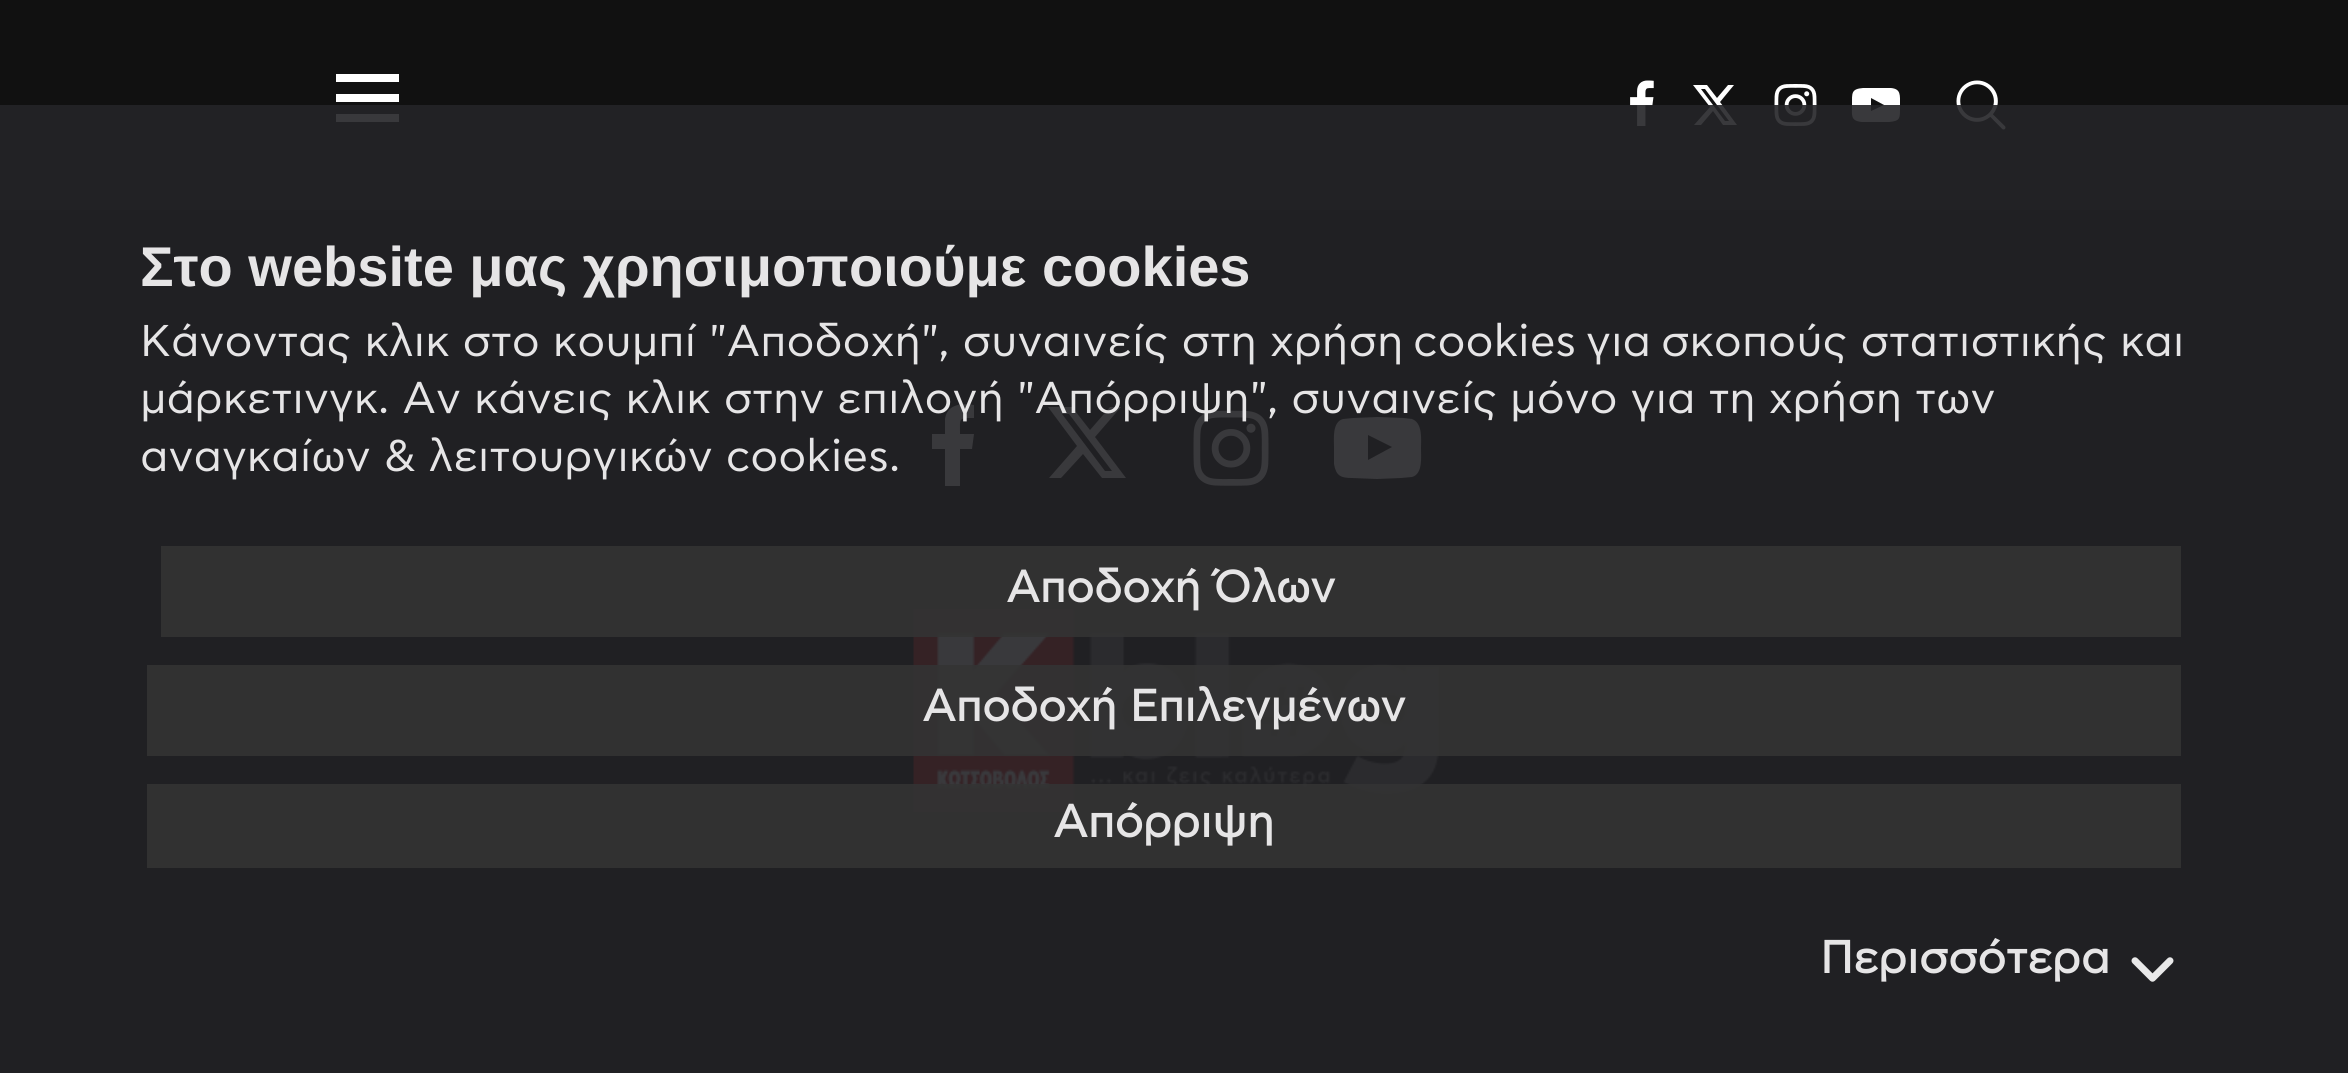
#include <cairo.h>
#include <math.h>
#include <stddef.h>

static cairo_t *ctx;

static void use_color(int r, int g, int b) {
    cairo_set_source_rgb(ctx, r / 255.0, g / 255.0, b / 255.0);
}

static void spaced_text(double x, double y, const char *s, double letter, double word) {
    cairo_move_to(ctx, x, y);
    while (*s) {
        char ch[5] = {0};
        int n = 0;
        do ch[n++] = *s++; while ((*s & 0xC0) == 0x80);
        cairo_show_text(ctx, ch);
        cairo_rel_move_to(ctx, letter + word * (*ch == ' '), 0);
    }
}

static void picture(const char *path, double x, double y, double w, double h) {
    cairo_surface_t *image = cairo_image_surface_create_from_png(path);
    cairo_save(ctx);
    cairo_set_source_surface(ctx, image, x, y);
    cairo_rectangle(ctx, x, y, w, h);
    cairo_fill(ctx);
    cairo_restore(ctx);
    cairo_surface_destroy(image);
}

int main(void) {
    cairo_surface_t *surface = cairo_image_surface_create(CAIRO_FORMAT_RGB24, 2348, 1073);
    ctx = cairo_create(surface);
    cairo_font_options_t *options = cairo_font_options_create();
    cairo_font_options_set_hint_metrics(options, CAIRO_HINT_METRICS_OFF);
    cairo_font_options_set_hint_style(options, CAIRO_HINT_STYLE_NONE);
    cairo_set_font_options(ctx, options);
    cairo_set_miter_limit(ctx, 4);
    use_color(0, 0, 0);
    cairo_paint(ctx);
    use_color(17, 17, 17);
    cairo_rectangle(ctx, 0, 0, 2348, 210);
    cairo_fill(ctx);
    use_color(255, 255, 255);
    cairo_rectangle(ctx, 336, 74, 63, 8);
    cairo_fill(ctx);
    cairo_rectangle(ctx, 336, 94, 63, 8);
    cairo_fill(ctx);
    cairo_rectangle(ctx, 336, 114, 63, 8);
    cairo_fill(ctx);
    picture("img1.png", 1630, 80, 24, 46);
    cairo_new_path(ctx);
    cairo_move_to(ctx, 1728, 85);
    cairo_line_to(ctx, 1734, 85);
    cairo_line_to(ctx, 1720, 102);
    cairo_line_to(ctx, 1737, 125);
    cairo_line_to(ctx, 1723, 125);
    cairo_line_to(ctx, 1713, 111);
    cairo_line_to(ctx, 1701, 125);
    cairo_line_to(ctx, 1694, 125);
    cairo_line_to(ctx, 1710, 107);
    cairo_line_to(ctx, 1693, 85);
    cairo_line_to(ctx, 1707, 85);
    cairo_line_to(ctx, 1717, 98);
    cairo_close_path(ctx);
    cairo_move_to(ctx, 1725, 121);
    cairo_line_to(ctx, 1729, 121);
    cairo_line_to(ctx, 1705, 89);
    cairo_line_to(ctx, 1701, 89);
    cairo_close_path(ctx);
    cairo_fill(ctx);
    picture("img2.png", 1774, 84, 43, 42);
    cairo_new_path(ctx);
    cairo_move_to(ctx, 1871, 111);
    cairo_line_to(ctx, 1884, 105);
    cairo_line_to(ctx, 1871, 98);
    cairo_close_path(ctx);
    cairo_move_to(ctx, 1876, 88);
    cairo_line_to(ctx, 1891, 88);
    cairo_curve_to(ctx, 1901, 89, 1900, 95, 1900, 105);
    cairo_curve_to(ctx, 1900, 118, 1901, 121, 1889, 122);
    cairo_line_to(ctx, 1862, 122);
    cairo_curve_to(ctx, 1850, 121, 1852, 115, 1852, 105);
    cairo_curve_to(ctx, 1852, 93, 1851, 89, 1863, 88);
    cairo_close_path(ctx);
    cairo_fill(ctx);
    picture("img3.png", 1956, 80, 50, 50);
    cairo_new_path(ctx);
    cairo_move_to(ctx, 974, 405);
    cairo_line_to(ctx, 974, 418);
    cairo_curve_to(ctx, 958, 418, 960, 418, 960, 434);
    cairo_line_to(ctx, 974, 434);
    cairo_line_to(ctx, 972, 449);
    cairo_line_to(ctx, 960, 449);
    cairo_line_to(ctx, 960, 486);
    cairo_line_to(ctx, 945, 486);
    cairo_line_to(ctx, 945, 449);
    cairo_line_to(ctx, 932, 449);
    cairo_line_to(ctx, 932, 434);
    cairo_line_to(ctx, 945, 434);
    cairo_line_to(ctx, 945, 419);
    cairo_curve_to(ctx, 947, 404, 962, 403, 974, 405);
    cairo_close_path(ctx);
    cairo_fill(ctx);
    cairo_new_path(ctx);
    cairo_move_to(ctx, 1110, 407);
    cairo_line_to(ctx, 1121, 407);
    cairo_line_to(ctx, 1095, 437);
    cairo_line_to(ctx, 1126, 478);
    cairo_line_to(ctx, 1102, 478);
    cairo_line_to(ctx, 1083, 454);
    cairo_line_to(ctx, 1061, 478);
    cairo_line_to(ctx, 1049, 478);
    cairo_line_to(ctx, 1077, 446);
    cairo_line_to(ctx, 1048, 407);
    cairo_line_to(ctx, 1072, 407);
    cairo_line_to(ctx, 1090, 430);
    cairo_close_path(ctx);
    cairo_move_to(ctx, 1105, 471);
    cairo_line_to(ctx, 1112, 471);
    cairo_line_to(ctx, 1069, 414);
    cairo_line_to(ctx, 1062, 414);
    cairo_close_path(ctx);
    cairo_fill(ctx);
    picture("img4.png", 1193, 410, 76, 76);
    cairo_new_path(ctx);
    cairo_move_to(ctx, 1368, 460);
    cairo_line_to(ctx, 1392, 447);
    cairo_line_to(ctx, 1368, 435);
    cairo_close_path(ctx);
    cairo_move_to(ctx, 1377, 417);
    cairo_line_to(ctx, 1403, 418);
    cairo_line_to(ctx, 1412, 419);
    cairo_curve_to(ctx, 1423, 423, 1421, 440, 1421, 448);
    cairo_curve_to(ctx, 1421, 457, 1423, 474, 1412, 477);
    cairo_line_to(ctx, 1401, 478);
    cairo_line_to(ctx, 1377, 479);
    cairo_line_to(ctx, 1352, 478);
    cairo_curve_to(ctx, 1341, 478, 1336, 476, 1334, 464);
    cairo_line_to(ctx, 1334, 447);
    cairo_curve_to(ctx, 1334, 439, 1332, 422, 1343, 419);
    cairo_line_to(ctx, 1353, 418);
    cairo_close_path(ctx);
    cairo_fill(ctx);
    picture("img5.png", 913, 609, 526, 203);
    cairo_set_source_rgba(ctx, 0.141, 0.141, 0.153, 0.9);
    cairo_rectangle(ctx, 0, 105, 2348, 968);
    cairo_fill(ctx);
    cairo_select_font_face(ctx, "Liberation Sans", CAIRO_FONT_SLANT_NORMAL, CAIRO_FONT_WEIGHT_BOLD);
    cairo_set_font_size(ctx, 56);
    use_color(230, 229, 230);
    cairo_move_to(ctx, 140, 286);
    cairo_show_text(ctx, "Στο website μας χρησιμοποιούμε cookies");
    cairo_select_font_face(ctx, "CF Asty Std", CAIRO_FONT_SLANT_NORMAL, CAIRO_FONT_WEIGHT_NORMAL);
    cairo_set_font_size(ctx, 44.35);
    spaced_text(140, 356, "Κάνοντας κλικ στο κουμπί \"Αποδοχή\", συναινείς στη χρήση", 0, -0.1);
    spaced_text(1413, 356, "cookies", 0, -0.1);
    spaced_text(1586, 356, "για", 0, -0.1);
    spaced_text(1661, 356, "σκοπούς στατιστικής και", 0, -0.1);
    spaced_text(140, 413, "μάρκετινγκ. Αν κάνεις κλικ στην επιλογή \"Απόρριψη\", συναινείς μόνο για τη χρήση των", 0, -0.1);
    cairo_move_to(ctx, 140, 471);
    cairo_show_text(ctx, "αναγκαίων & λειτουργικών cookies.");
    cairo_set_source_rgba(ctx, 0.2, 0.2, 0.2, 0.9);
    cairo_rectangle(ctx, 161, 546, 2020, 91);
    cairo_fill(ctx);
    cairo_select_font_face(ctx, "CF Asty Std", CAIRO_FONT_SLANT_NORMAL, CAIRO_FONT_WEIGHT_BOLD);
    use_color(230, 229, 230);
    cairo_move_to(ctx, 1006, 602);
    cairo_show_text(ctx, "Αποδοχή Όλων");
    cairo_set_source_rgba(ctx, 0.2, 0.2, 0.2, 0.9);
    cairo_rectangle(ctx, 147, 665, 2034, 91);
    cairo_fill(ctx);
    use_color(230, 229, 230);
    cairo_move_to(ctx, 922, 721);
    cairo_show_text(ctx, "Αποδοχή Επιλεγμένων");
    cairo_set_source_rgba(ctx, 0.2, 0.2, 0.2, 0.9);
    cairo_rectangle(ctx, 147, 784, 2034, 84);
    cairo_fill(ctx);
    cairo_set_font_size(ctx, 45.5);
    use_color(230, 229, 230);
    cairo_move_to(ctx, 1053, 837);
    cairo_show_text(ctx, "Απόρριψη");
    cairo_move_to(ctx, 1820, 973);
    cairo_show_text(ctx, "Περισσότερα");
    picture("img6.png", 2131, 957, 43, 25);
    cairo_surface_write_to_png(surface, "result.png");
    cairo_font_options_destroy(options);
    cairo_destroy(ctx);
    cairo_surface_destroy(surface);
    return 0;
}
